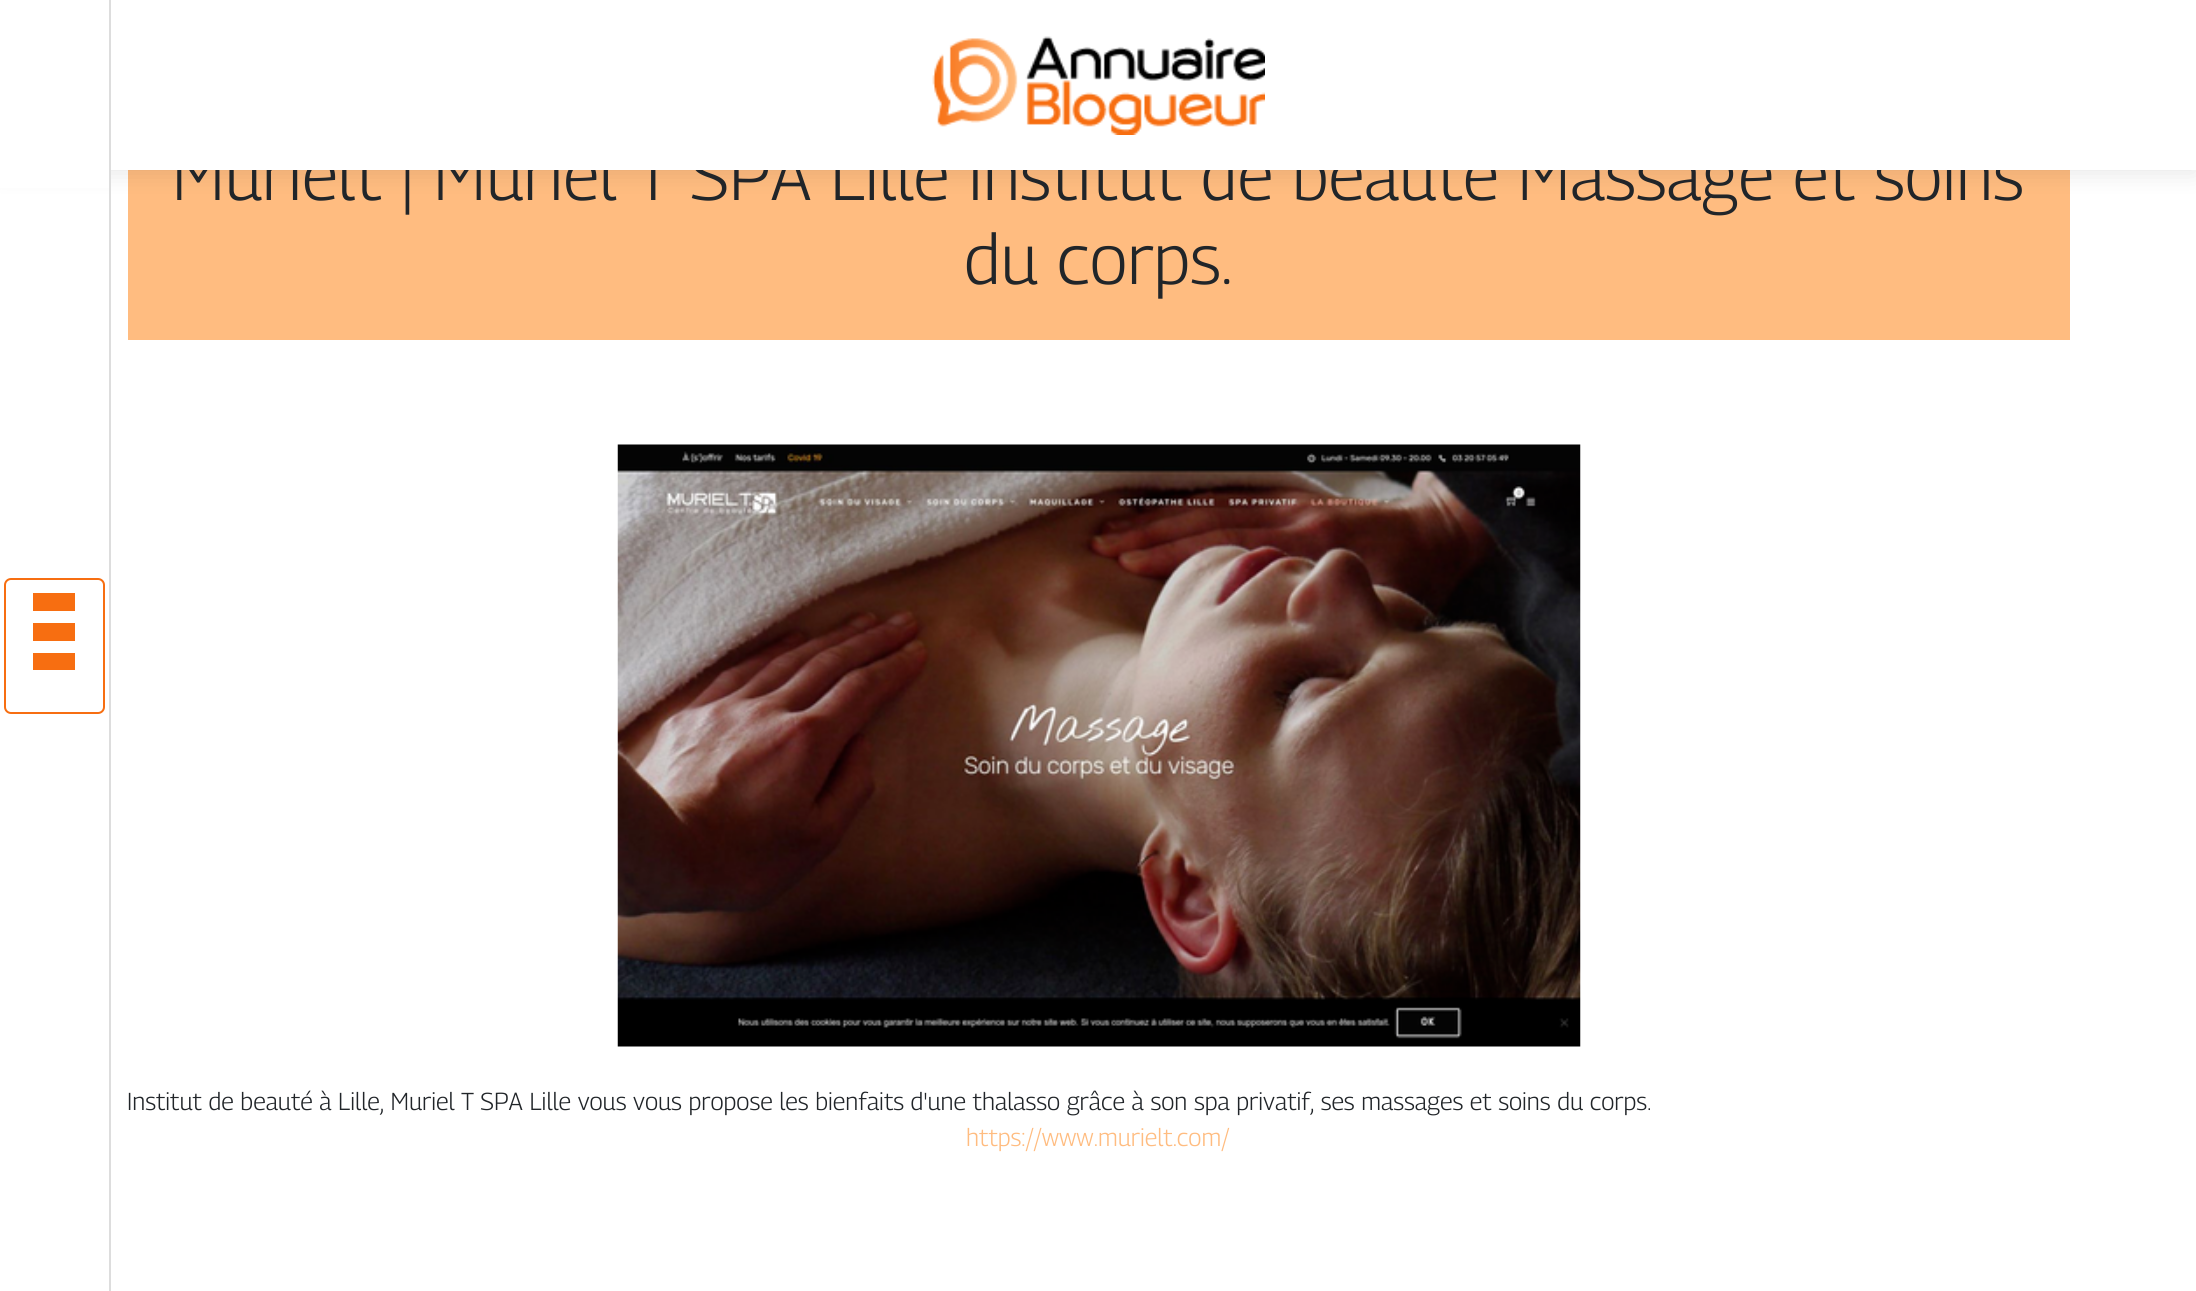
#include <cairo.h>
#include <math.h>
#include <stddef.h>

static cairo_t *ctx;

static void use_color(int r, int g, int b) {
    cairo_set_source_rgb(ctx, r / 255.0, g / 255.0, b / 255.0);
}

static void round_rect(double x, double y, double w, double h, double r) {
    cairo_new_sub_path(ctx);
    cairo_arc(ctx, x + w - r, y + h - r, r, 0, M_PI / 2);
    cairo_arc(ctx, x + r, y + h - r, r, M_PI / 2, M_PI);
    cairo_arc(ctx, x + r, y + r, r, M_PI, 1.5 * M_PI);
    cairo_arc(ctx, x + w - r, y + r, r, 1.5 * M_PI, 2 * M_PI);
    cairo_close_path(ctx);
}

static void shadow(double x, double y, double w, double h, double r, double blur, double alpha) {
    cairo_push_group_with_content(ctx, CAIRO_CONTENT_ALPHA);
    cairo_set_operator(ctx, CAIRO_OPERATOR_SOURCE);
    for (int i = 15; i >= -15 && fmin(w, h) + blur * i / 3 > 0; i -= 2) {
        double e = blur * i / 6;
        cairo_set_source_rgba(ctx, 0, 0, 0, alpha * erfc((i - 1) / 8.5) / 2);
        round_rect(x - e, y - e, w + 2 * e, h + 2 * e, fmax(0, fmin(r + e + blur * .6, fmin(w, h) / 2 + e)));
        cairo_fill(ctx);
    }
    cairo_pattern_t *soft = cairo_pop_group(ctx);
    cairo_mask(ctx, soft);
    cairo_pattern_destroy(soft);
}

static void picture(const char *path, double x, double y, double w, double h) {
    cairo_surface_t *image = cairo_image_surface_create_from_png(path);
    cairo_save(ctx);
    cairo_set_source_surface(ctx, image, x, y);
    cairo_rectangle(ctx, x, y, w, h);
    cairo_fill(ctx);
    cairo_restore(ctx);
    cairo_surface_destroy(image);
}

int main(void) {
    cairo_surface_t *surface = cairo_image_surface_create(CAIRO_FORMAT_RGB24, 2196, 1291);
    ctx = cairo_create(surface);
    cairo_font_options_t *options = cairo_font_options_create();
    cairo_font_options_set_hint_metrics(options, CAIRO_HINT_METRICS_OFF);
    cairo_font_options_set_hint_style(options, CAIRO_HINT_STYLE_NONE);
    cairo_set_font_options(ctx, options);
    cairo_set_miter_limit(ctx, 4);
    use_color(255, 255, 255);
    cairo_paint(ctx);
    use_color(255, 188, 128);
    cairo_rectangle(ctx, 128, 170, 1942, 170);
    cairo_fill(ctx);
    use_color(0, 0, 0);
    shadow(0, 4, 2196, 169, 0, 11.5, 0.1);
    cairo_select_font_face(ctx, "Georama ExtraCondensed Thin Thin", CAIRO_FONT_SLANT_NORMAL, CAIRO_FONT_WEIGHT_NORMAL);
    cairo_set_font_size(ctx, 70);
    use_color(33, 37, 41);
    cairo_move_to(ctx, 172, 200);
    cairo_show_text(ctx, "Murielt | Muriel T SPA Lille Institut de beauté Massage et soins");
    use_color(255, 255, 255);
    cairo_rectangle(ctx, 111, 0, 2085, 170);
    cairo_fill(ctx);
    cairo_rectangle(ctx, 0, 0, 109, 188);
    cairo_fill(ctx);
    use_color(221, 221, 221);
    cairo_rectangle(ctx, 109, 0, 2, 1291);
    cairo_fill(ctx);
    round_rect(5, 579, 99, 134, 6);
    use_color(247, 110, 17);
    cairo_stroke(ctx);
    cairo_rectangle(ctx, 33, 593, 42, 18);
    cairo_fill(ctx);
    cairo_rectangle(ctx, 33, 623, 42, 18);
    cairo_fill(ctx);
    cairo_rectangle(ctx, 33, 653, 42, 17);
    cairo_fill(ctx);
    picture("img1.png", 932, 36, 333, 99);
    use_color(33, 37, 41);
    cairo_move_to(ctx, 964, 284);
    cairo_show_text(ctx, "du corps.");
    picture("img2.png", 617, 444, 964, 603);
    cairo_set_font_size(ctx, 24.5);
    cairo_move_to(ctx, 127, 1110);
    cairo_show_text(ctx, "Institut de beauté à Lille, Muriel T SPA Lille vous vous propose les bienfaits d'une thalasso grâce à son spa privatif, ses massages et soins du corps.");
    use_color(255, 188, 128);
    cairo_move_to(ctx, 966, 1146);
    cairo_show_text(ctx, "https://www.murielt.com/");
    cairo_surface_write_to_png(surface, "result.png");
    cairo_font_options_destroy(options);
    cairo_destroy(ctx);
    cairo_surface_destroy(surface);
    return 0;
}
